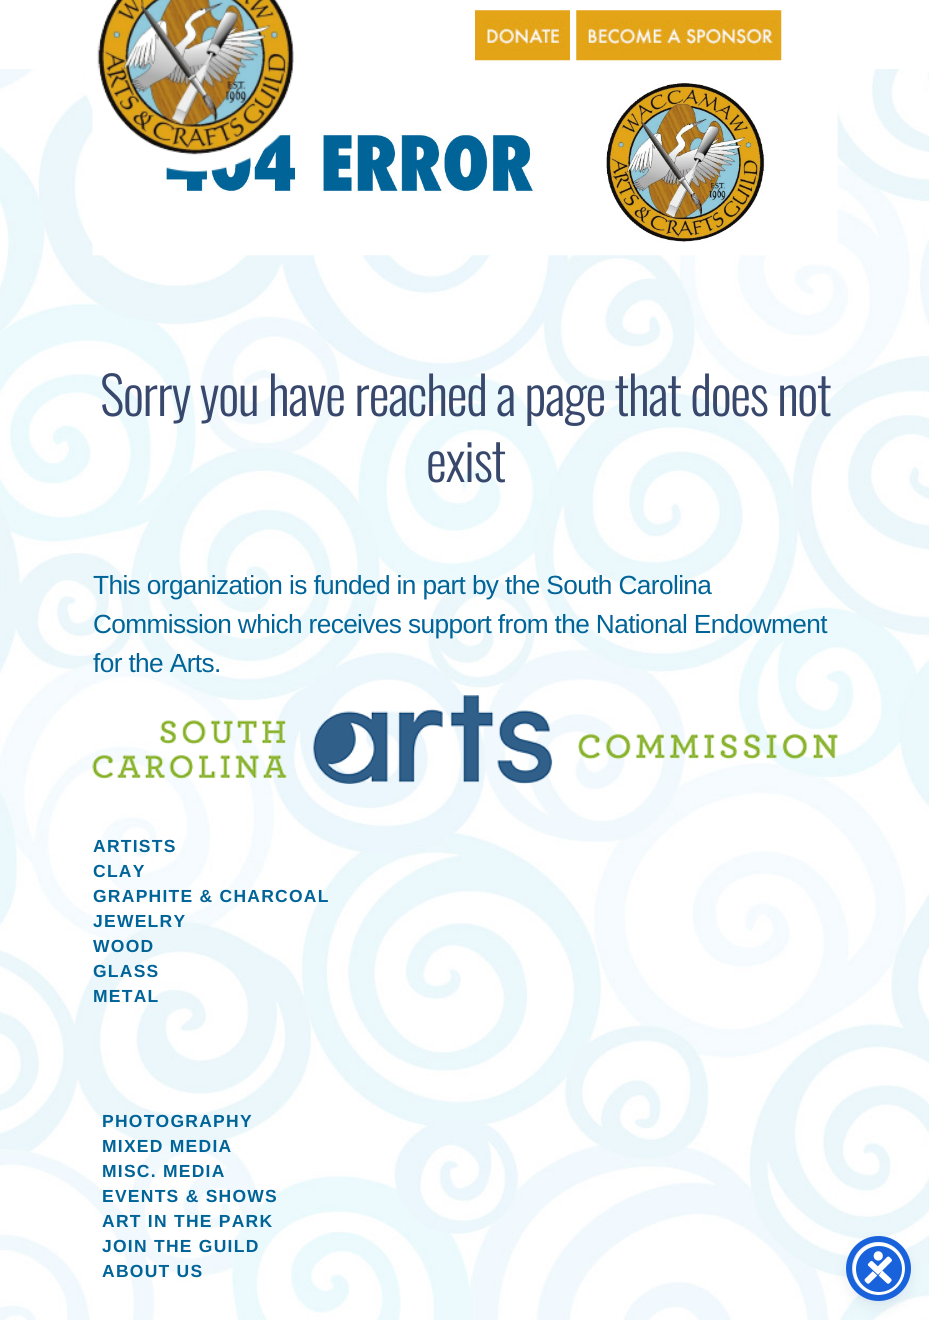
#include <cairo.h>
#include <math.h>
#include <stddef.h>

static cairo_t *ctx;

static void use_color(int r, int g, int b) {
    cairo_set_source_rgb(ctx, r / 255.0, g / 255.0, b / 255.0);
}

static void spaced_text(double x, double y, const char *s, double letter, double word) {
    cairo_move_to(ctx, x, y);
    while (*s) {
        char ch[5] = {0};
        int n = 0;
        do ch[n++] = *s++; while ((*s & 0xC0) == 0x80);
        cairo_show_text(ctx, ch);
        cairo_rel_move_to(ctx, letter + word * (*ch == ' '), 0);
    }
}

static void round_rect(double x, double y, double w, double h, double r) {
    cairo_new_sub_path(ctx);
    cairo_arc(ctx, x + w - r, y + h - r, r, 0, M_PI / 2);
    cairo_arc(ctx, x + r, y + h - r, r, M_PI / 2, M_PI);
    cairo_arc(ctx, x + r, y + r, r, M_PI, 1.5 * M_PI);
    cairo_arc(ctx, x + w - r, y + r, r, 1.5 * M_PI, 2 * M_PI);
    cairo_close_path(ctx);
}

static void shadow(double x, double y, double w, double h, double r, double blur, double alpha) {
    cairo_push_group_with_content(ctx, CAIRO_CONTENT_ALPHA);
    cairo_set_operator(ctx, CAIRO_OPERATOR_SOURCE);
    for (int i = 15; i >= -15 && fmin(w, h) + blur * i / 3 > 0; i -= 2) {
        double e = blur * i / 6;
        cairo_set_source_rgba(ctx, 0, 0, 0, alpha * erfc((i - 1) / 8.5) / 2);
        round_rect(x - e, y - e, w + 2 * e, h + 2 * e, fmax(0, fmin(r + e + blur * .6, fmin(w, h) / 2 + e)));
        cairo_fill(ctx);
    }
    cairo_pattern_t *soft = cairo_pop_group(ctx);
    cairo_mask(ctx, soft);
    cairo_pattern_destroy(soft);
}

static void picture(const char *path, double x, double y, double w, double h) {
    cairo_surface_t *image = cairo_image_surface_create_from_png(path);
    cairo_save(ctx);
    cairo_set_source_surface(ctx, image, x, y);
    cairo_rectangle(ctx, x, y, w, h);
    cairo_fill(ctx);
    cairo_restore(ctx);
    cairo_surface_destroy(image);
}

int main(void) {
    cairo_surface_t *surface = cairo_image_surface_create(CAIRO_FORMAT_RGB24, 929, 1320);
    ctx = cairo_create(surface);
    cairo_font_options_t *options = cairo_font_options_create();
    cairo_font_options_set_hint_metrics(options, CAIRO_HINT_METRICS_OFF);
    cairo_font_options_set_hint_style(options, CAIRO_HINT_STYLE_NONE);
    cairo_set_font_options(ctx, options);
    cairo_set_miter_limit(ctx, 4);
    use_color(255, 255, 255);
    cairo_paint(ctx);
    picture("img1.png", 0, 69, 929, 1251);
    picture("img5.png", 92, 69, 746, 187);
    picture("img2.png", 86, 0, 208, 172);
    picture("img3.png", 475, 10, 95, 51);
    picture("img4.png", 576, 10, 206, 51);
    cairo_select_font_face(ctx, "Oswald Light", CAIRO_FONT_SLANT_NORMAL, CAIRO_FONT_WEIGHT_NORMAL);
    cairo_set_font_size(ctx, 52.5);
    use_color(56, 71, 108);
    spaced_text(100, 416, "Sorry you have reached a page that does not", -1.25, 0);
    spaced_text(426, 482, "exist", -1.25, 0);
    cairo_select_font_face(ctx, "Liberation Sans", CAIRO_FONT_SLANT_NORMAL, CAIRO_FONT_WEIGHT_NORMAL);
    cairo_set_font_size(ctx, 26.25);
    use_color(0, 100, 152);
    spaced_text(93, 594, "This organization is funded in part by the South Carolina", -0.62, 0);
    spaced_text(93, 633, "Commission which receives support from the National Endowment", -0.62, 0);
    spaced_text(93, 672, "for the Arts.", -0.62, 0);
    picture("img6.png", 92, 695, 746, 89);
    cairo_select_font_face(ctx, "Liberation Sans", CAIRO_FONT_SLANT_NORMAL, CAIRO_FONT_WEIGHT_BOLD);
    cairo_set_font_size(ctx, 17.5);
    spaced_text(93, 852, "ARTISTS", 1.25, 0);
    spaced_text(93, 877, "CLAY", 1.25, 0);
    spaced_text(93, 902, "GRAPHITE & CHARCOAL", 1.25, 0);
    spaced_text(93, 927, "JEWELRY", 1.25, 0);
    spaced_text(93, 952, "WOOD", 1.25, 0);
    spaced_text(93, 977, "GLASS", 1.25, 0);
    spaced_text(93, 1002, "METAL", 1.25, 0);
    spaced_text(102, 1127, "PHOTOGRAPHY", 1.25, 0);
    spaced_text(102, 1152, "MIXED MEDIA", 1.25, 0);
    spaced_text(102, 1177, "MISC. MEDIA", 1.25, 0);
    spaced_text(102, 1202, "EVENTS & SHOWS", 1.25, 0);
    spaced_text(102, 1227, "ART IN THE PARK", 1.25, 0);
    spaced_text(102, 1252, "JOIN THE GUILD", 1.25, 0);
    spaced_text(102, 1277, "ABOUT US", 1.25, 0);
    use_color(93, 100, 148);
    shadow(853, 1245, 52, 53, 26, 2.5, 0.2);
    use_color(37, 44, 97);
    shadow(853, 1249, 52, 52, 26, 9.5, 0.15);
    use_color(24, 99, 220);
    cairo_arc(ctx, 879, 1269, 24.5, 0, 2 * M_PI);
    cairo_fill_preserve(ctx);
    use_color(255, 255, 255);
    cairo_set_line_width(ctx, 3);
    cairo_stroke(ctx);
    cairo_arc(ctx, 878.5, 1268.5, 29.5, 0, 2 * M_PI);
    use_color(24, 99, 220);
    cairo_set_line_width(ctx, 6);
    cairo_stroke(ctx);
    picture("img7.png", 864, 1251, 28, 33);
    cairo_surface_write_to_png(surface, "result.png");
    cairo_font_options_destroy(options);
    cairo_destroy(ctx);
    cairo_surface_destroy(surface);
    return 0;
}
